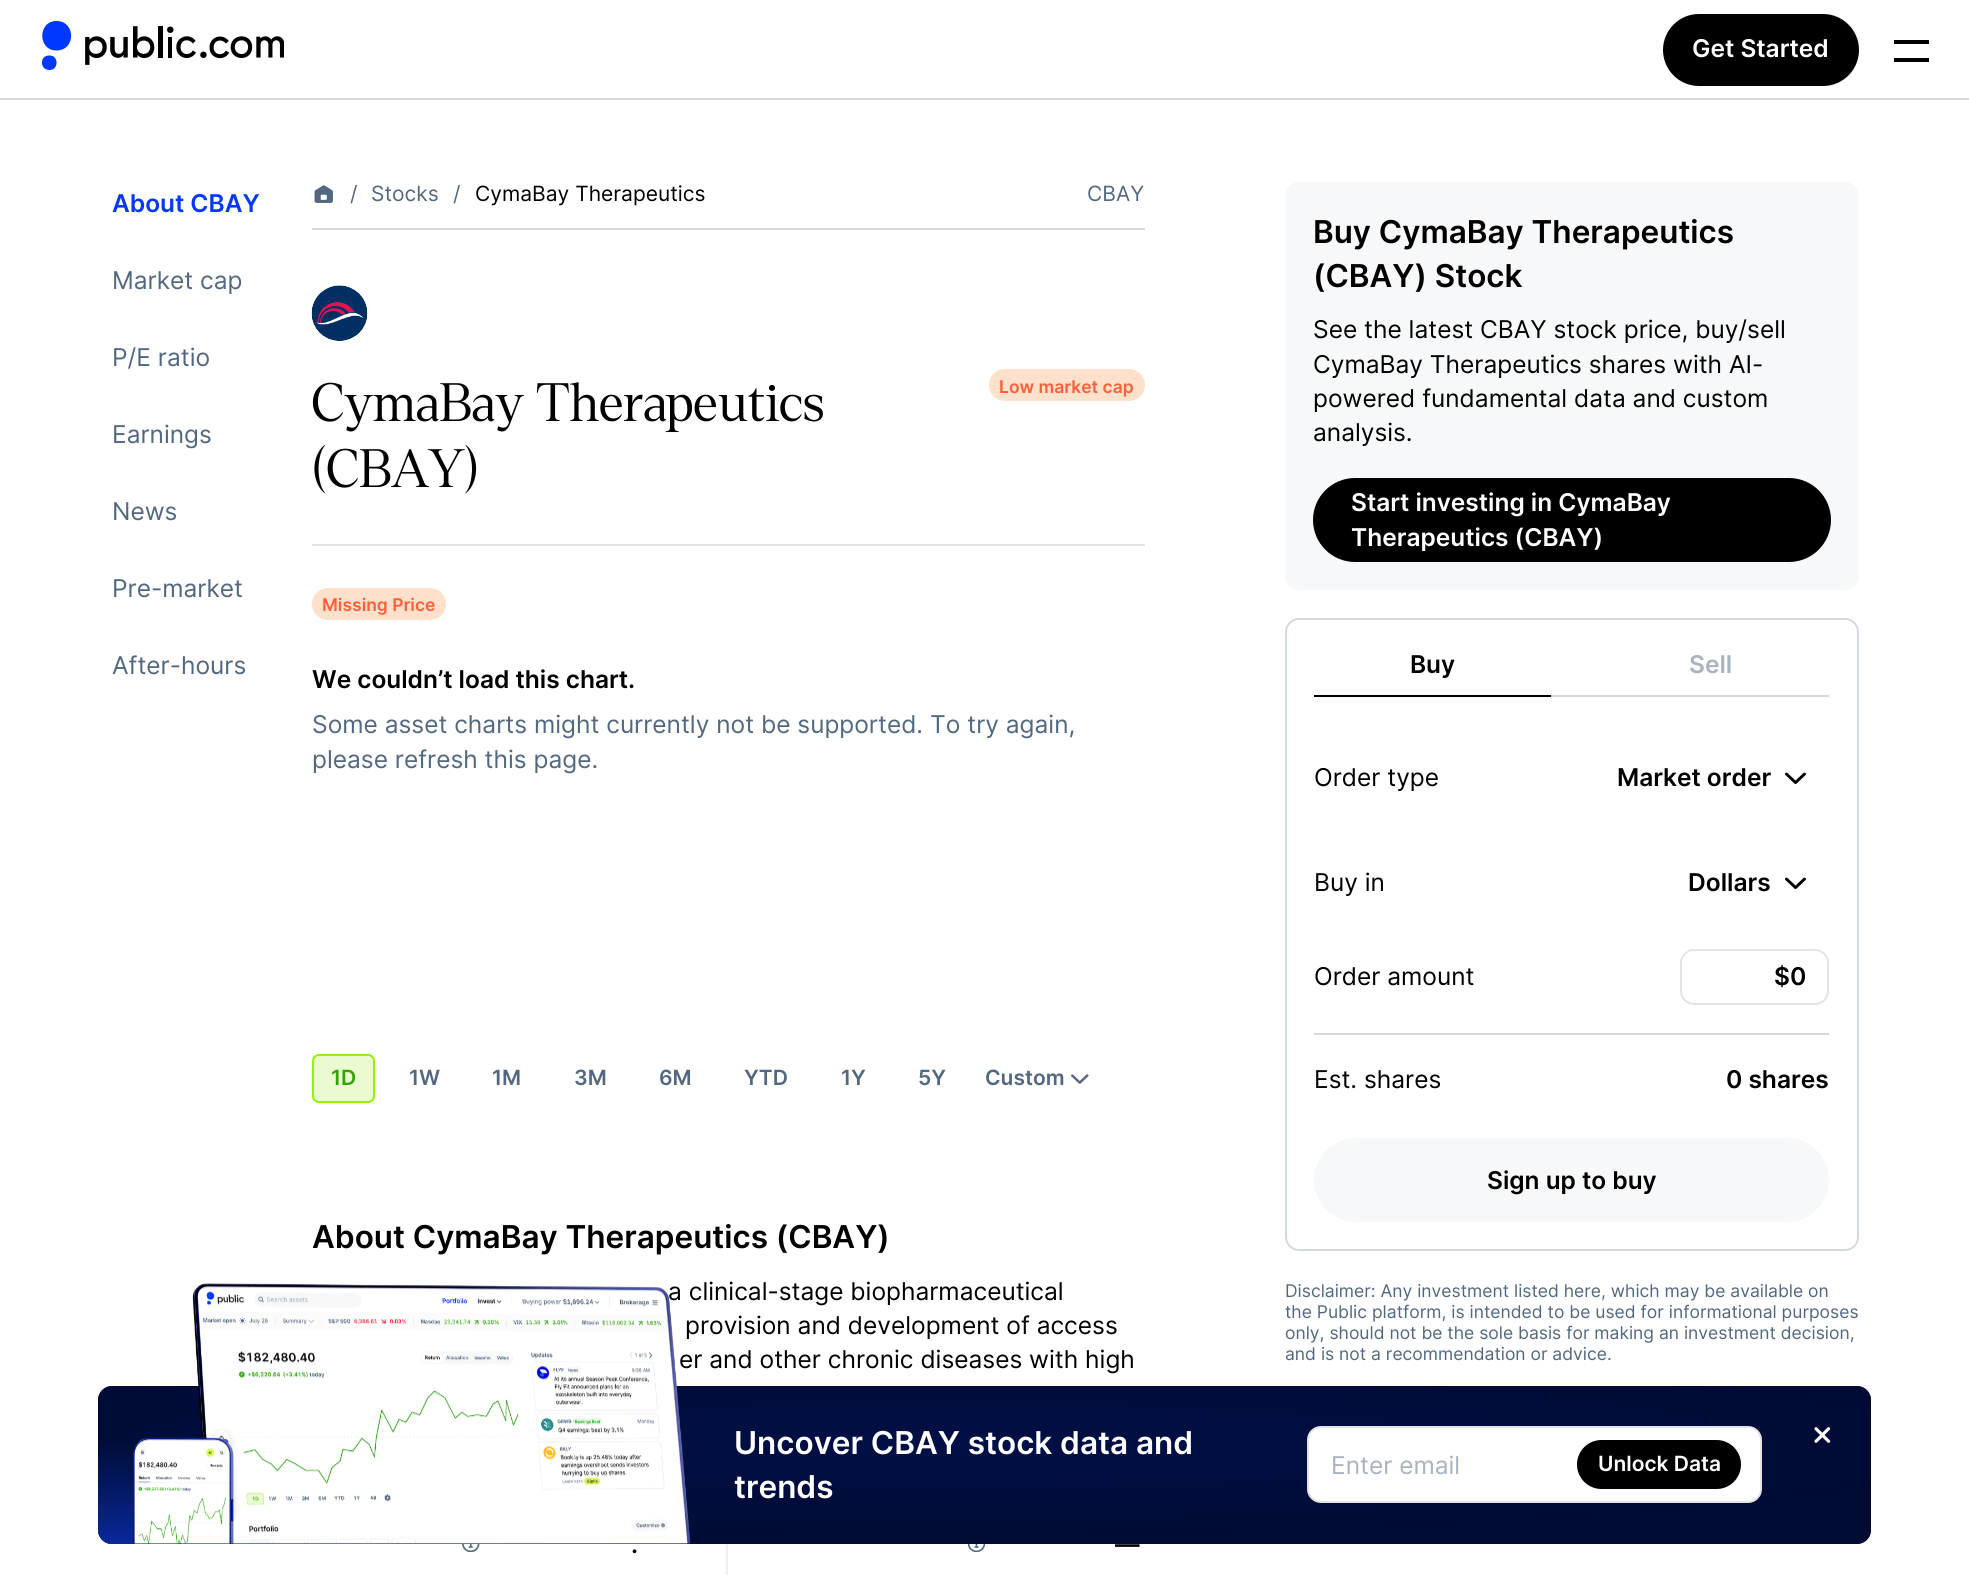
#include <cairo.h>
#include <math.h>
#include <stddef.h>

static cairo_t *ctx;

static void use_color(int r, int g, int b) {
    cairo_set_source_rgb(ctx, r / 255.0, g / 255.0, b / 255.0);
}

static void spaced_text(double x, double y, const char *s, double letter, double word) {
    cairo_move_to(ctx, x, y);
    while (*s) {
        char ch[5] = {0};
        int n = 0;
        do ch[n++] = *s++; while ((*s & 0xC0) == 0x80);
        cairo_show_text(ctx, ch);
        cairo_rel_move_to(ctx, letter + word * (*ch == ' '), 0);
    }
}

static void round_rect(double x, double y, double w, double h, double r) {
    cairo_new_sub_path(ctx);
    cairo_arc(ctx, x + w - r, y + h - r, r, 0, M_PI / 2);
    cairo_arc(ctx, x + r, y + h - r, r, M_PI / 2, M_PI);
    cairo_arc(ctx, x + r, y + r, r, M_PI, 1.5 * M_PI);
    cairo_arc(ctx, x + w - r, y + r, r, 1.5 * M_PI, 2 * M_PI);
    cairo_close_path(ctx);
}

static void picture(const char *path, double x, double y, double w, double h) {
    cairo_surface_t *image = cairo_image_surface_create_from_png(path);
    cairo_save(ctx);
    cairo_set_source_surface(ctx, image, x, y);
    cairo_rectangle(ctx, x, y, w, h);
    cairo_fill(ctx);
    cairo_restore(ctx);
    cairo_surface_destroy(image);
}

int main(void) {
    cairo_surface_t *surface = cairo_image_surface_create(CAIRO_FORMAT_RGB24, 1969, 1575);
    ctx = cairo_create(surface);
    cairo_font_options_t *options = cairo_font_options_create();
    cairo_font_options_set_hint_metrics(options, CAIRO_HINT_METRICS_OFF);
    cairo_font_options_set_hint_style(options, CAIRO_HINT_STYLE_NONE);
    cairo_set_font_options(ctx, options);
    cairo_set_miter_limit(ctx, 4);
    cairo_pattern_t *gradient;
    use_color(255, 255, 255);
    cairo_paint(ctx);
    use_color(212, 217, 223);
    cairo_rectangle(ctx, 0, 98, 1969, 2);
    cairo_fill(ctx);
    use_color(0, 56, 255);
    cairo_new_path(ctx);
    cairo_move_to(ctx, 56.5, 50.5);
    cairo_curve_to(ctx, 76, 50.5, 76, 21, 56.5, 21);
    cairo_curve_to(ctx, 37.5, 21, 37.5, 50.5, 56.5, 50.5);
    cairo_close_path(ctx);
    cairo_move_to(ctx, 49.5, 70);
    cairo_curve_to(ctx, 59, 70, 59, 55, 49, 55.5);
    cairo_curve_to(ctx, 39.5, 55.5, 39.5, 70, 49.5, 70);
    cairo_close_path(ctx);
    cairo_fill(ctx);
    picture("img1.png", 85, 26, 199, 39);
    use_color(0, 0, 0);
    round_rect(1663, 14, 196, 72, 36);
    cairo_fill(ctx);
    cairo_select_font_face(ctx, "Inter SemiBold", CAIRO_FONT_SLANT_NORMAL, CAIRO_FONT_WEIGHT_NORMAL);
    cairo_set_font_size(ctx, 24.5);
    use_color(255, 255, 255);
    cairo_move_to(ctx, 1692, 57);
    cairo_show_text(ctx, "Get Started");
    use_color(0, 0, 0);
    cairo_rectangle(ctx, 1894, 40, 35, 4);
    cairo_fill(ctx);
    cairo_rectangle(ctx, 1894, 58, 35, 4);
    cairo_fill(ctx);
    use_color(0, 56, 255);
    cairo_move_to(ctx, 112, 212);
    cairo_show_text(ctx, "About CBAY");
    cairo_select_font_face(ctx, "Inter", CAIRO_FONT_SLANT_NORMAL, CAIRO_FONT_WEIGHT_NORMAL);
    use_color(81, 104, 128);
    cairo_move_to(ctx, 112, 289);
    cairo_show_text(ctx, "Market cap");
    cairo_move_to(ctx, 112, 366);
    cairo_show_text(ctx, "P/E ratio");
    cairo_move_to(ctx, 112, 443);
    cairo_show_text(ctx, "Earnings");
    cairo_move_to(ctx, 112, 520);
    cairo_show_text(ctx, "News");
    cairo_move_to(ctx, 112, 597);
    cairo_show_text(ctx, "Pre-market");
    cairo_move_to(ctx, 112, 674);
    cairo_show_text(ctx, "After-hours");
    use_color(212, 217, 223);
    cairo_rectangle(ctx, 312, 228, 833, 2);
    cairo_fill(ctx);
    picture("img2.png", 314, 185, 19, 18);
    cairo_set_font_size(ctx, 21);
    use_color(81, 104, 128);
    cairo_move_to(ctx, 350, 201);
    cairo_show_text(ctx, "/");
    cairo_move_to(ctx, 371, 201);
    cairo_show_text(ctx, "Stocks");
    cairo_move_to(ctx, 453, 201);
    cairo_show_text(ctx, "/");
    use_color(0, 0, 0);
    cairo_move_to(ctx, 475, 201);
    cairo_show_text(ctx, "CymaBay Therapeutics");
    use_color(81, 104, 128);
    cairo_move_to(ctx, 1087, 201);
    cairo_show_text(ctx, "CBAY");
    picture("img3.png", 311, 285, 57, 56);
    cairo_select_font_face(ctx, "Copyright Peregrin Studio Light", CAIRO_FONT_SLANT_NORMAL, CAIRO_FONT_WEIGHT_NORMAL);
    cairo_set_font_size(ctx, 52.5);
    use_color(0, 0, 0);
    spaced_text(312, 421, "CymaBay Therapeutics", 1.05, 0);
    spaced_text(312, 487, "(CBAY)", 1.05, 0);
    use_color(255, 224, 202);
    round_rect(989, 369, 156, 32, 16);
    cairo_fill(ctx);
    cairo_select_font_face(ctx, "Inter SemiBold", CAIRO_FONT_SLANT_NORMAL, CAIRO_FONT_WEIGHT_NORMAL);
    cairo_set_font_size(ctx, 17.5);
    use_color(255, 94, 58);
    cairo_move_to(ctx, 999, 393);
    cairo_show_text(ctx, "Low market cap");
    use_color(228, 228, 228);
    cairo_rectangle(ctx, 312, 544, 833, 2);
    cairo_fill(ctx);
    use_color(255, 224, 202);
    round_rect(312, 588, 134, 32, 16);
    cairo_fill(ctx);
    use_color(255, 94, 58);
    cairo_move_to(ctx, 322, 611);
    cairo_show_text(ctx, "Missing Price");
    cairo_set_font_size(ctx, 24.5);
    use_color(0, 0, 0);
    cairo_move_to(ctx, 312, 688);
    cairo_show_text(ctx, "We couldn’t load this chart.");
    cairo_select_font_face(ctx, "Inter", CAIRO_FONT_SLANT_NORMAL, CAIRO_FONT_WEIGHT_NORMAL);
    use_color(81, 104, 128);
    cairo_move_to(ctx, 312, 733);
    cairo_show_text(ctx, "Some asset charts might currently not be supported. To try again,");
    cairo_move_to(ctx, 312, 768);
    cairo_show_text(ctx, "please refresh this page.");
    use_color(234, 251, 209);
    round_rect(313, 1055, 61, 47, 6);
    cairo_fill_preserve(ctx);
    use_color(149, 240, 1);
    cairo_stroke(ctx);
    cairo_select_font_face(ctx, "Inter SemiBold", CAIRO_FONT_SLANT_NORMAL, CAIRO_FONT_WEIGHT_NORMAL);
    cairo_set_font_size(ctx, 21);
    use_color(49, 164, 0);
    cairo_move_to(ctx, 331, 1085);
    cairo_show_text(ctx, "1D");
    use_color(81, 104, 128);
    cairo_move_to(ctx, 409, 1085);
    cairo_show_text(ctx, "1W");
    cairo_move_to(ctx, 492, 1085);
    cairo_show_text(ctx, "1M");
    cairo_move_to(ctx, 574, 1085);
    cairo_show_text(ctx, "3M");
    cairo_move_to(ctx, 659, 1085);
    cairo_show_text(ctx, "6M");
    cairo_move_to(ctx, 744, 1085);
    cairo_show_text(ctx, "YTD");
    cairo_move_to(ctx, 841, 1085);
    cairo_show_text(ctx, "1Y");
    cairo_move_to(ctx, 918, 1085);
    cairo_show_text(ctx, "5Y");
    cairo_move_to(ctx, 985, 1085);
    cairo_show_text(ctx, "Custom");
    picture("img4.png", 1071, 1074, 18, 10);
    cairo_set_font_size(ctx, 31.5);
    use_color(0, 0, 0);
    cairo_move_to(ctx, 312, 1248);
    cairo_show_text(ctx, "About CymaBay Therapeutics (CBAY)");
    cairo_select_font_face(ctx, "Inter", CAIRO_FONT_SLANT_NORMAL, CAIRO_FONT_WEIGHT_NORMAL);
    cairo_set_font_size(ctx, 24.5);
    cairo_move_to(ctx, 668, 1300);
    cairo_show_text(ctx, "a clinical-stage biopharmaceutical");
    cairo_move_to(ctx, 685, 1334);
    cairo_show_text(ctx, "provision and development of access");
    cairo_move_to(ctx, 679, 1368);
    cairo_show_text(ctx, "er and other chronic diseases with high");
    use_color(238, 240, 242);
    cairo_rectangle(ctx, 726, 1544, 2, 31);
    cairo_fill(ctx);
    picture("img5.png", 968, 1544, 17, 8);
    cairo_select_font_face(ctx, "Inter SemiBold", CAIRO_FONT_SLANT_NORMAL, CAIRO_FONT_WEIGHT_NORMAL);
    use_color(0, 0, 0);
    cairo_move_to(ctx, 1115, 1553);
    cairo_show_text(ctx, "—");
    picture("img6.png", 462, 1544, 18, 8);
    cairo_move_to(ctx, 631, 1553);
    cairo_show_text(ctx, ".");
    use_color(246, 248, 249);
    round_rect(1285, 182, 574, 408, 14);
    cairo_fill(ctx);
    cairo_set_font_size(ctx, 31.5);
    use_color(0, 0, 0);
    cairo_move_to(ctx, 1313, 243);
    cairo_show_text(ctx, "Buy CymaBay Therapeutics");
    cairo_move_to(ctx, 1313, 287);
    cairo_show_text(ctx, "(CBAY) Stock");
    cairo_select_font_face(ctx, "Inter", CAIRO_FONT_SLANT_NORMAL, CAIRO_FONT_WEIGHT_NORMAL);
    cairo_set_font_size(ctx, 24.5);
    cairo_move_to(ctx, 1313, 338);
    cairo_show_text(ctx, "See the latest CBAY stock price, buy/sell");
    cairo_move_to(ctx, 1313, 373);
    cairo_show_text(ctx, "CymaBay Therapeutics shares with AI-");
    cairo_move_to(ctx, 1313, 407);
    cairo_show_text(ctx, "powered fundamental data and custom");
    cairo_move_to(ctx, 1313, 441);
    cairo_show_text(ctx, "analysis.");
    round_rect(1313, 478, 518, 84, 42);
    cairo_fill(ctx);
    cairo_select_font_face(ctx, "Inter SemiBold", CAIRO_FONT_SLANT_NORMAL, CAIRO_FONT_WEIGHT_NORMAL);
    use_color(255, 255, 255);
    cairo_move_to(ctx, 1351, 511);
    cairo_show_text(ctx, "Start investing in CymaBay");
    cairo_move_to(ctx, 1351, 546);
    cairo_show_text(ctx, "Therapeutics (CBAY)");
    round_rect(1286, 619, 572, 631, 13);
    use_color(212, 217, 223);
    cairo_stroke(ctx);
    use_color(0, 0, 0);
    cairo_rectangle(ctx, 1314, 695, 237, 2);
    cairo_fill(ctx);
    cairo_move_to(ctx, 1410, 673);
    cairo_show_text(ctx, "Buy");
    use_color(168, 180, 191);
    cairo_move_to(ctx, 1689, 673);
    cairo_show_text(ctx, "Sell");
    use_color(212, 217, 223);
    cairo_rectangle(ctx, 1551, 695, 278, 2);
    cairo_fill(ctx);
    cairo_select_font_face(ctx, "Inter", CAIRO_FONT_SLANT_NORMAL, CAIRO_FONT_WEIGHT_NORMAL);
    use_color(0, 0, 0);
    cairo_move_to(ctx, 1314, 786);
    cairo_show_text(ctx, "Order type");
    cairo_select_font_face(ctx, "Inter SemiBold", CAIRO_FONT_SLANT_NORMAL, CAIRO_FONT_WEIGHT_NORMAL);
    cairo_move_to(ctx, 1617, 786);
    cairo_show_text(ctx, "Market order");
    picture("img7.png", 1785, 772, 21, 12);
    cairo_select_font_face(ctx, "Inter", CAIRO_FONT_SLANT_NORMAL, CAIRO_FONT_WEIGHT_NORMAL);
    cairo_move_to(ctx, 1314, 891);
    cairo_show_text(ctx, "Buy in");
    cairo_select_font_face(ctx, "Inter SemiBold", CAIRO_FONT_SLANT_NORMAL, CAIRO_FONT_WEIGHT_NORMAL);
    cairo_move_to(ctx, 1688, 891);
    cairo_show_text(ctx, "Dollars");
    picture("img7.png", 1785, 877, 21, 12);
    use_color(212, 217, 223);
    cairo_rectangle(ctx, 1314, 1033, 515, 2);
    cairo_fill(ctx);
    cairo_select_font_face(ctx, "Inter", CAIRO_FONT_SLANT_NORMAL, CAIRO_FONT_WEIGHT_NORMAL);
    use_color(0, 0, 0);
    cairo_move_to(ctx, 1314, 985);
    cairo_show_text(ctx, "Order amount");
    round_rect(1681, 950, 147, 54, 13);
    use_color(228, 228, 228);
    cairo_stroke(ctx);
    cairo_select_font_face(ctx, "Inter SemiBold", CAIRO_FONT_SLANT_NORMAL, CAIRO_FONT_WEIGHT_NORMAL);
    use_color(0, 0, 0);
    cairo_move_to(ctx, 1774, 985);
    cairo_show_text(ctx, "$0");
    cairo_select_font_face(ctx, "Inter", CAIRO_FONT_SLANT_NORMAL, CAIRO_FONT_WEIGHT_NORMAL);
    cairo_move_to(ctx, 1314, 1088);
    cairo_show_text(ctx, "Est. shares");
    cairo_select_font_face(ctx, "Inter SemiBold", CAIRO_FONT_SLANT_NORMAL, CAIRO_FONT_WEIGHT_NORMAL);
    cairo_move_to(ctx, 1726, 1088);
    cairo_show_text(ctx, "0 shares");
    use_color(246, 248, 249);
    round_rect(1314, 1138, 515, 84, 42);
    cairo_fill(ctx);
    use_color(0, 0, 0);
    cairo_move_to(ctx, 1487, 1189);
    cairo_show_text(ctx, "Sign up to buy");
    cairo_select_font_face(ctx, "Inter", CAIRO_FONT_SLANT_NORMAL, CAIRO_FONT_WEIGHT_NORMAL);
    cairo_set_font_size(ctx, 17.5);
    use_color(81, 104, 128);
    cairo_move_to(ctx, 1285, 1297);
    cairo_show_text(ctx, "Disclaimer: Any investment listed here, which may be available on");
    cairo_move_to(ctx, 1285, 1318);
    cairo_show_text(ctx, "the Public platform, is intended to be used for informational purposes");
    cairo_move_to(ctx, 1285, 1339);
    cairo_show_text(ctx, "only, should not be the sole basis for making an investment decision,");
    cairo_move_to(ctx, 1285, 1360);
    cairo_show_text(ctx, "and is not a recommendation or advice.");
    gradient = cairo_pattern_create_radial(0, 0, 0, 0, 0, 1);
    cairo_pattern_set_matrix(gradient, &(cairo_matrix_t){1.0 / 1145, 0, 0, 1.0 / 99, -1.0 * 939 / 1145, -1.0 * 1446 / 99});
    cairo_pattern_add_color_stop_rgba(gradient, 0, 0, 0.078, 0.365, 1);
    cairo_pattern_add_color_stop_rgba(gradient, 1, 0, 0, 0, 1);
    cairo_set_source(ctx, gradient);
    cairo_pattern_destroy(gradient);
    round_rect(98, 1386, 1773, 158, 14);
    cairo_fill(ctx);
    cairo_set_source_rgba(ctx, 0, 0.055, 0.251, 0.8);
    round_rect(98, 1386, 1773, 158, 14);
    cairo_fill(ctx);
    gradient = cairo_pattern_create_radial(0, 0, 0, 0, 0, 1);
    cairo_pattern_set_matrix(gradient, &(cairo_matrix_t){1.0 / 593, 0, 0, 1.0 / 101, -1.0 * 118 / 593, -1.0 * 1544 / 101});
    cairo_pattern_add_color_stop_rgba(gradient, 0, 0.035, 0.161, 0.616, 1);
    cairo_pattern_add_color_stop_rgba(gradient, 1, 0.035, 0.161, 0.616, 0);
    cairo_set_source(ctx, gradient);
    cairo_pattern_destroy(gradient);
    round_rect(98, 1386, 1773, 158, 14);
    cairo_fill(ctx);
    picture("img8.png", 133, 1283, 558, 261);
    cairo_select_font_face(ctx, "Inter SemiBold", CAIRO_FONT_SLANT_NORMAL, CAIRO_FONT_WEIGHT_NORMAL);
    cairo_set_font_size(ctx, 31.5);
    use_color(255, 255, 255);
    cairo_move_to(ctx, 734, 1454);
    cairo_show_text(ctx, "Uncover CBAY stock data and");
    cairo_move_to(ctx, 734, 1498);
    cairo_show_text(ctx, "trends");
    round_rect(1307, 1426, 455, 77, 14);
    cairo_fill(ctx);
    round_rect(1308, 1427, 453, 75, 13);
    cairo_set_source_rgba(ctx, 0.471, 0.471, 0.471, 0.2);
    cairo_stroke(ctx);
    cairo_select_font_face(ctx, "Inter", CAIRO_FONT_SLANT_NORMAL, CAIRO_FONT_WEIGHT_NORMAL);
    cairo_set_font_size(ctx, 24.5);
    use_color(168, 180, 191);
    cairo_move_to(ctx, 1331, 1474);
    cairo_show_text(ctx, "Enter email");
    use_color(0, 0, 0);
    round_rect(1577, 1440, 164, 49, 24.5);
    cairo_fill(ctx);
    cairo_select_font_face(ctx, "Inter SemiBold", CAIRO_FONT_SLANT_NORMAL, CAIRO_FONT_WEIGHT_NORMAL);
    cairo_set_font_size(ctx, 21);
    use_color(255, 255, 255);
    cairo_move_to(ctx, 1598, 1471);
    cairo_show_text(ctx, "Unlock Data");
    picture("img9.png", 1814, 1427, 17, 16);
    cairo_surface_write_to_png(surface, "result.png");
    cairo_font_options_destroy(options);
    cairo_destroy(ctx);
    cairo_surface_destroy(surface);
    return 0;
}
